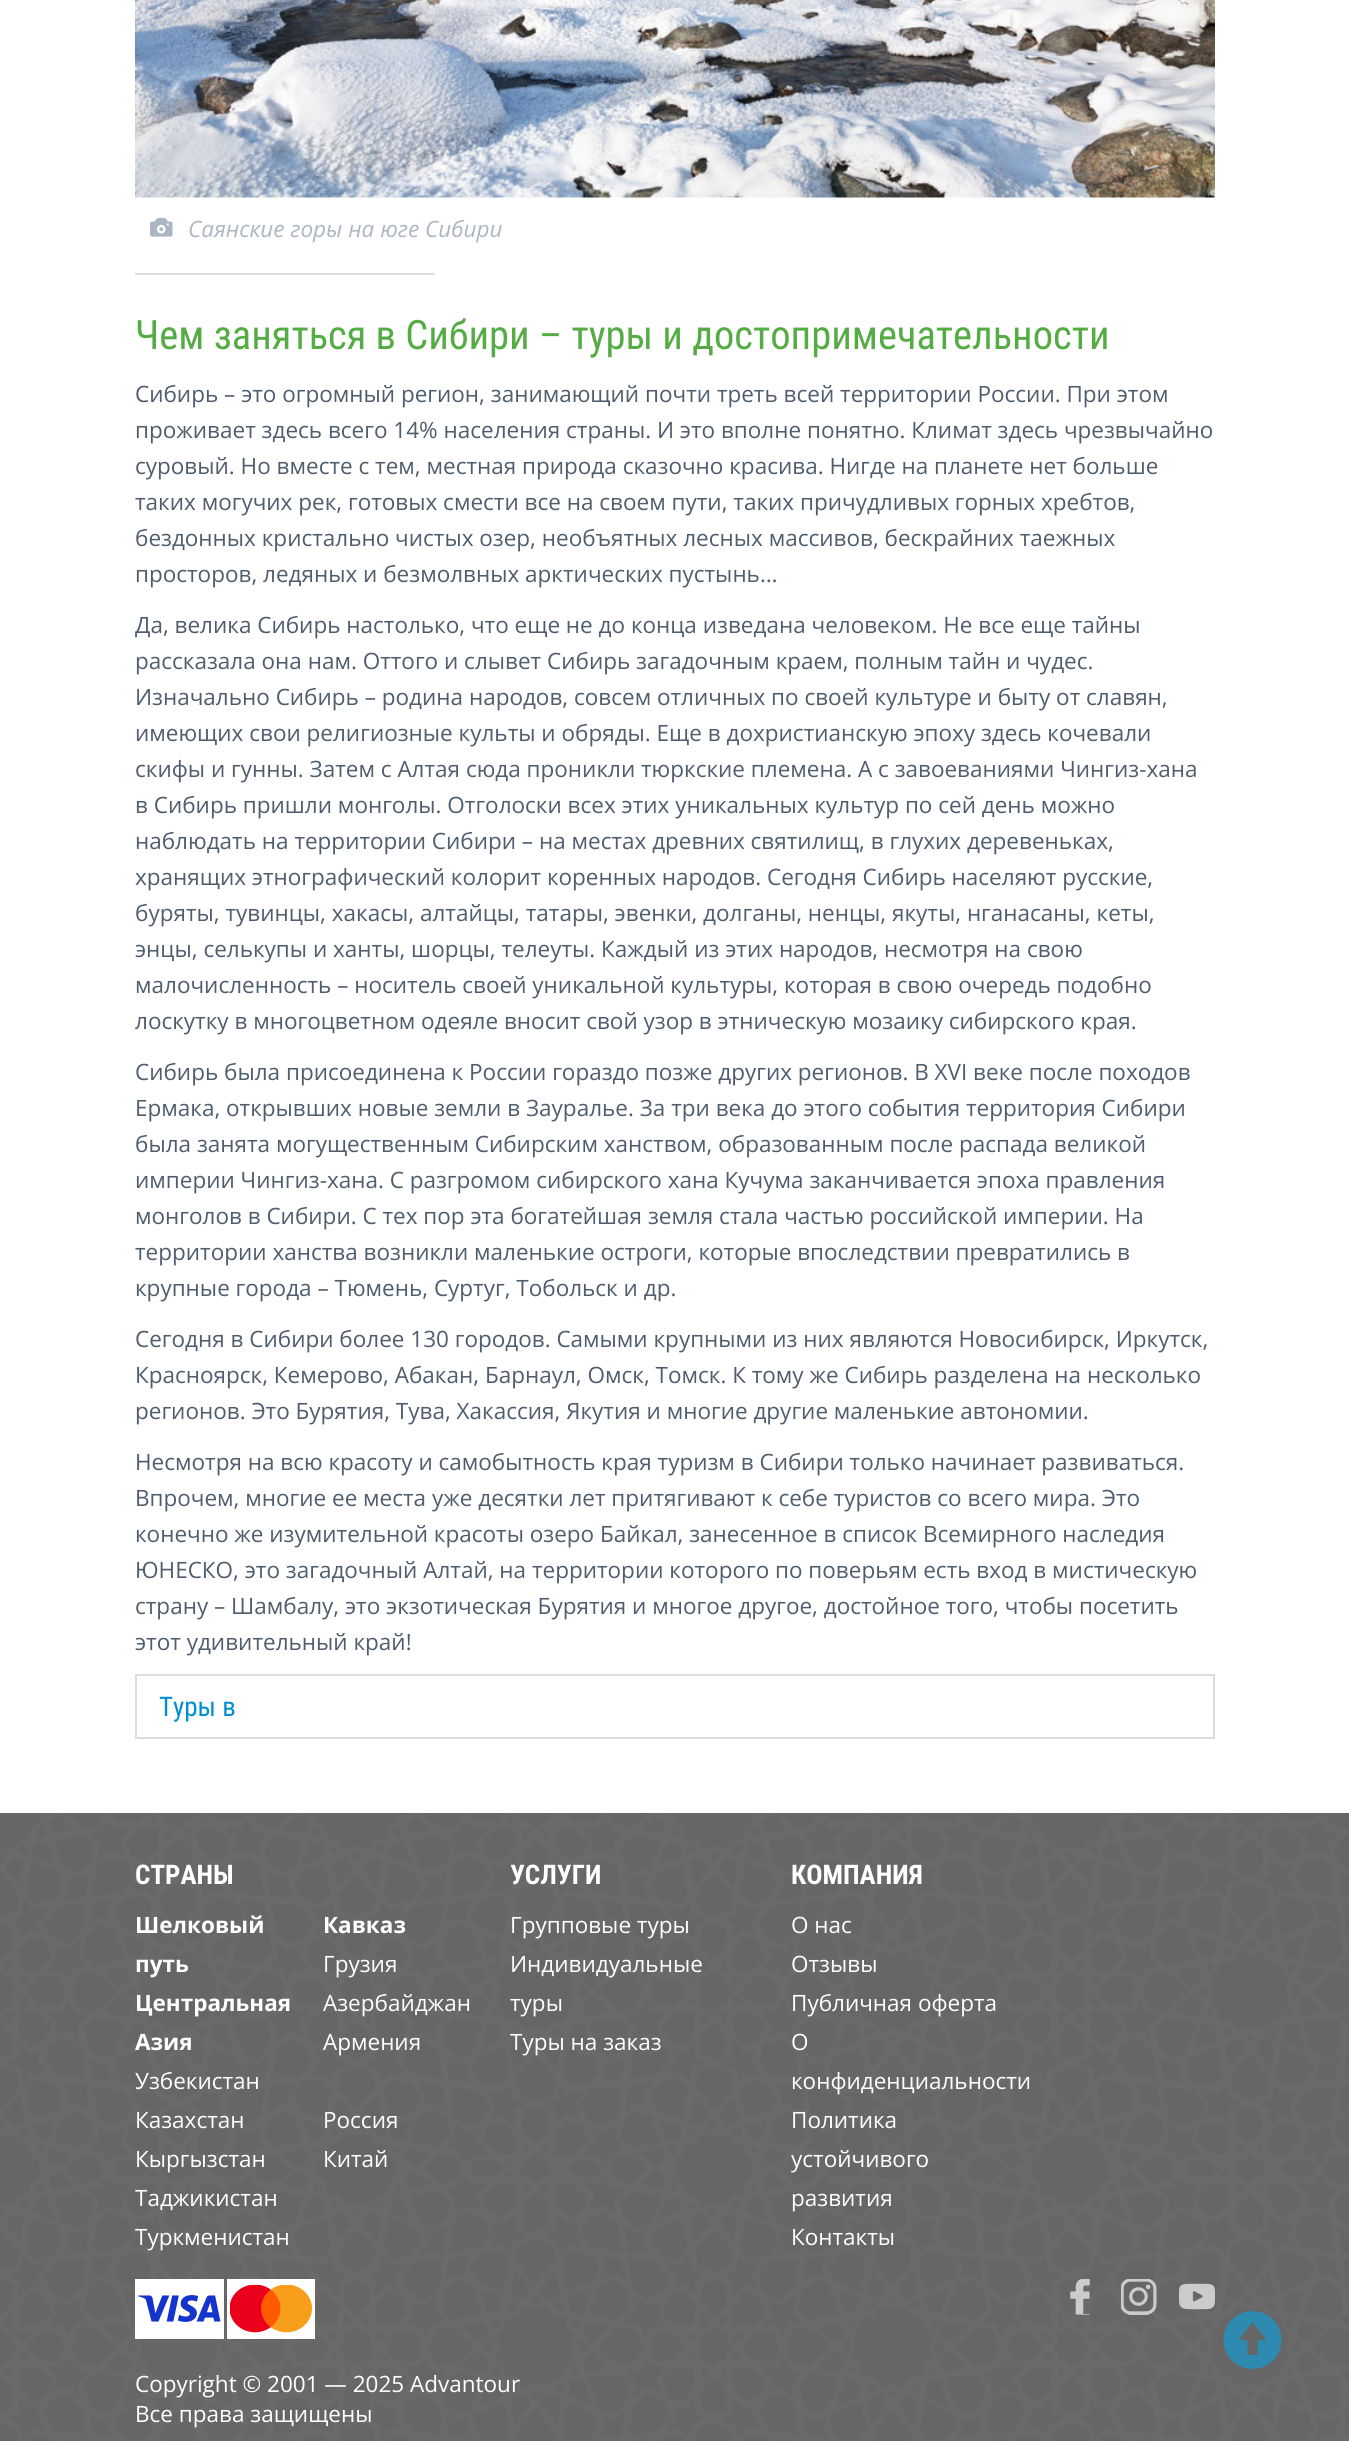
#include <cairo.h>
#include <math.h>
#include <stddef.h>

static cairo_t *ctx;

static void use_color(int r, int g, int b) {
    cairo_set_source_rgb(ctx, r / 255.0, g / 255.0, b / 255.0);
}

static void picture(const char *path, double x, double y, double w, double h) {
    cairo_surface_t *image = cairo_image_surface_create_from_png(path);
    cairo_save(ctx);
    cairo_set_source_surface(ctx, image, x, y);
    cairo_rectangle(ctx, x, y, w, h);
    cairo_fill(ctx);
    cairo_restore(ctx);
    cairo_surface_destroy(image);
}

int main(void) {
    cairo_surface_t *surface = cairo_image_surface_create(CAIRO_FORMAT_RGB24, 1349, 2441);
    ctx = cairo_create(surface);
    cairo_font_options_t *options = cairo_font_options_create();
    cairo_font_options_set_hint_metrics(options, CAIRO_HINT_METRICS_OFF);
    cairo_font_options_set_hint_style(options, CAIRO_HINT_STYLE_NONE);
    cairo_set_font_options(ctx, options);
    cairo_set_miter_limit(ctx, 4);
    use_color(255, 255, 255);
    cairo_paint(ctx);
    picture("img1.png", 135, 0, 1080, 198);
    picture("img2.png", 150, 217, 23, 20);
    cairo_select_font_face(ctx, "Open Sans", CAIRO_FONT_SLANT_ITALIC, CAIRO_FONT_WEIGHT_NORMAL);
    cairo_set_font_size(ctx, 22.5);
    use_color(172, 182, 195);
    cairo_move_to(ctx, 188, 237);
    cairo_show_text(ctx, "Саянские горы на юге Сибири");
    use_color(222, 222, 222);
    cairo_rectangle(ctx, 135, 273, 300, 2);
    cairo_fill(ctx);
    cairo_select_font_face(ctx, "Roboto Condensed", CAIRO_FONT_SLANT_NORMAL, CAIRO_FONT_WEIGHT_NORMAL);
    cairo_set_font_size(ctx, 40.5);
    use_color(85, 172, 69);
    cairo_move_to(ctx, 135, 349);
    cairo_show_text(ctx, "Чем заняться в Сибири – туры и достопримечательности");
    cairo_select_font_face(ctx, "Open Sans", CAIRO_FONT_SLANT_NORMAL, CAIRO_FONT_WEIGHT_NORMAL);
    cairo_set_font_size(ctx, 22.5);
    use_color(79, 93, 110);
    cairo_move_to(ctx, 135, 402);
    cairo_show_text(ctx, "Сибирь – это огромный регион, занимающий почти треть всей территории России. При этом");
    cairo_move_to(ctx, 135, 438);
    cairo_show_text(ctx, "проживает здесь всего 14% населения страны. И это вполне понятно. Климат здесь чрезвычайно");
    cairo_move_to(ctx, 135, 474);
    cairo_show_text(ctx, "суровый. Но вместе с тем, местная природа сказочно красива. Нигде на планете нет больше");
    cairo_move_to(ctx, 135, 510);
    cairo_show_text(ctx, "таких могучих рек, готовых смести все на своем пути, таких причудливых горных хребтов,");
    cairo_move_to(ctx, 135, 546);
    cairo_show_text(ctx, "бездонных кристально чистых озер, необъятных лесных массивов, бескрайних таежных");
    cairo_move_to(ctx, 135, 582);
    cairo_show_text(ctx, "просторов, ледяных и безмолвных арктических пустынь…");
    cairo_move_to(ctx, 135, 633);
    cairo_show_text(ctx, "Да, велика Сибирь настолько, что еще не до конца изведана человеком. Не все еще тайны");
    cairo_move_to(ctx, 135, 669);
    cairo_show_text(ctx, "рассказала она нам. Оттого и слывет Сибирь загадочным краем, полным тайн и чудес.");
    cairo_move_to(ctx, 135, 705);
    cairo_show_text(ctx, "Изначально Сибирь – родина народов, совсем отличных по своей культуре и быту от славян,");
    cairo_move_to(ctx, 135, 741);
    cairo_show_text(ctx, "имеющих свои религиозные культы и обряды. Еще в дохристианскую эпоху здесь кочевали");
    cairo_move_to(ctx, 135, 777);
    cairo_show_text(ctx, "скифы и гунны. Затем с Алтая сюда проникли тюркские племена. А с завоеваниями Чингиз-хана");
    cairo_move_to(ctx, 135, 813);
    cairo_show_text(ctx, "в Сибирь пришли монголы. Отголоски всех этих уникальных культур по сей день можно");
    cairo_move_to(ctx, 135, 849);
    cairo_show_text(ctx, "наблюдать на территории Сибири – на местах древних святилищ, в глухих деревеньках,");
    cairo_move_to(ctx, 135, 885);
    cairo_show_text(ctx, "хранящих этнографический колорит коренных народов. Сегодня Сибирь населяют русские,");
    cairo_move_to(ctx, 135, 921);
    cairo_show_text(ctx, "буряты, тувинцы, хакасы, алтайцы, татары, эвенки, долганы, ненцы, якуты, нганасаны, кеты,");
    cairo_move_to(ctx, 135, 957);
    cairo_show_text(ctx, "энцы, селькупы и ханты, шорцы, телеуты. Каждый из этих народов, несмотря на свою");
    cairo_move_to(ctx, 135, 993);
    cairo_show_text(ctx, "малочисленность – носитель своей уникальной культуры, которая в свою очередь подобно");
    cairo_move_to(ctx, 135, 1029);
    cairo_show_text(ctx, "лоскутку в многоцветном одеяле вносит свой узор в этническую мозаику сибирского края.");
    cairo_move_to(ctx, 135, 1080);
    cairo_show_text(ctx, "Сибирь была присоединена к России гораздо позже других регионов. В XVI веке после походов");
    cairo_move_to(ctx, 135, 1116);
    cairo_show_text(ctx, "Ермака, открывших новые земли в Зауралье. За три века до этого события территория Сибири");
    cairo_move_to(ctx, 135, 1152);
    cairo_show_text(ctx, "была занята могущественным Сибирским ханством, образованным после распада великой");
    cairo_move_to(ctx, 135, 1188);
    cairo_show_text(ctx, "империи Чингиз-хана. С разгромом сибирского хана Кучума заканчивается эпоха правления");
    cairo_move_to(ctx, 135, 1224);
    cairo_show_text(ctx, "монголов в Сибири. C тех пор эта богатейшая земля стала частью российской империи. На");
    cairo_move_to(ctx, 135, 1260);
    cairo_show_text(ctx, "территории ханства возникли маленькие остроги, которые впоследствии превратились в");
    cairo_move_to(ctx, 135, 1296);
    cairo_show_text(ctx, "крупные города – Тюмень, Суртуг, Тобольск и др.");
    cairo_move_to(ctx, 135, 1347);
    cairo_show_text(ctx, "Сегодня в Сибири более 130 городов. Самыми крупными из них являются Новосибирск, Иркутск,");
    cairo_move_to(ctx, 135, 1383);
    cairo_show_text(ctx, "Красноярск, Кемерово, Абакан, Барнаул, Омск, Томск. К тому же Сибирь разделена на несколько");
    cairo_move_to(ctx, 135, 1419);
    cairo_show_text(ctx, "регионов. Это Бурятия, Тува, Хакассия, Якутия и многие другие маленькие автономии.");
    cairo_move_to(ctx, 135, 1470);
    cairo_show_text(ctx, "Несмотря на всю красоту и самобытность края туризм в Сибири только начинает развиваться.");
    cairo_move_to(ctx, 135, 1506);
    cairo_show_text(ctx, "Впрочем, многие ее места уже десятки лет притягивают к себе туристов со всего мира. Это");
    cairo_move_to(ctx, 135, 1542);
    cairo_show_text(ctx, "конечно же изумительной красоты озеро Байкал, занесенное в список Всемирного наследия");
    cairo_move_to(ctx, 135, 1578);
    cairo_show_text(ctx, "ЮНЕСКО, это загадочный Алтай, на территории которого по поверьям есть вход в мистическую");
    cairo_move_to(ctx, 135, 1614);
    cairo_show_text(ctx, "страну – Шамбалу, это экзотическая Бурятия и многое другое, достойное того, чтобы посетить");
    cairo_move_to(ctx, 135, 1650);
    cairo_show_text(ctx, "этот удивительный край!");
    cairo_rectangle(ctx, 136, 1675, 1078, 63);
    use_color(221, 221, 221);
    cairo_stroke(ctx);
    cairo_select_font_face(ctx, "Roboto Condensed", CAIRO_FONT_SLANT_NORMAL, CAIRO_FONT_WEIGHT_NORMAL);
    cairo_set_font_size(ctx, 27);
    use_color(0, 145, 204);
    cairo_move_to(ctx, 159, 1716);
    cairo_show_text(ctx, "Туры в");
    picture("img3.png", 0, 1813, 1349, 628);
    cairo_select_font_face(ctx, "Roboto Condensed", CAIRO_FONT_SLANT_NORMAL, CAIRO_FONT_WEIGHT_BOLD);
    use_color(255, 255, 255);
    cairo_move_to(ctx, 135, 1884);
    cairo_show_text(ctx, "СТРАНЫ");
    cairo_select_font_face(ctx, "Open Sans", CAIRO_FONT_SLANT_NORMAL, CAIRO_FONT_WEIGHT_BOLD);
    cairo_set_font_size(ctx, 22.5);
    cairo_move_to(ctx, 135, 1933);
    cairo_show_text(ctx, "Шелковый");
    cairo_move_to(ctx, 135, 1972);
    cairo_show_text(ctx, "путь");
    cairo_move_to(ctx, 135, 2011);
    cairo_show_text(ctx, "Центральная");
    cairo_move_to(ctx, 135, 2050);
    cairo_show_text(ctx, "Азия");
    cairo_select_font_face(ctx, "Open Sans", CAIRO_FONT_SLANT_NORMAL, CAIRO_FONT_WEIGHT_NORMAL);
    cairo_move_to(ctx, 135, 2089);
    cairo_show_text(ctx, "Узбекистан");
    cairo_move_to(ctx, 135, 2128);
    cairo_show_text(ctx, "Казахстан");
    cairo_move_to(ctx, 135, 2167);
    cairo_show_text(ctx, "Кыргызстан");
    cairo_move_to(ctx, 135, 2206);
    cairo_show_text(ctx, "Таджикистан");
    cairo_move_to(ctx, 135, 2245);
    cairo_show_text(ctx, "Туркменистан");
    cairo_select_font_face(ctx, "Open Sans", CAIRO_FONT_SLANT_NORMAL, CAIRO_FONT_WEIGHT_BOLD);
    cairo_move_to(ctx, 323, 1933);
    cairo_show_text(ctx, "Кавказ");
    cairo_select_font_face(ctx, "Open Sans", CAIRO_FONT_SLANT_NORMAL, CAIRO_FONT_WEIGHT_NORMAL);
    cairo_move_to(ctx, 323, 1972);
    cairo_show_text(ctx, "Грузия");
    cairo_move_to(ctx, 323, 2011);
    cairo_show_text(ctx, "Азербайджан");
    cairo_move_to(ctx, 323, 2050);
    cairo_show_text(ctx, "Армения");
    cairo_move_to(ctx, 323, 2128);
    cairo_show_text(ctx, "Россия");
    cairo_move_to(ctx, 323, 2167);
    cairo_show_text(ctx, "Китай");
    cairo_select_font_face(ctx, "Roboto Condensed", CAIRO_FONT_SLANT_NORMAL, CAIRO_FONT_WEIGHT_BOLD);
    cairo_set_font_size(ctx, 27);
    cairo_move_to(ctx, 510, 1884);
    cairo_show_text(ctx, "УСЛУГИ");
    cairo_select_font_face(ctx, "Open Sans", CAIRO_FONT_SLANT_NORMAL, CAIRO_FONT_WEIGHT_NORMAL);
    cairo_set_font_size(ctx, 22.5);
    cairo_move_to(ctx, 510, 1933);
    cairo_show_text(ctx, "Групповые туры");
    cairo_move_to(ctx, 510, 1972);
    cairo_show_text(ctx, "Индивидуальные");
    cairo_move_to(ctx, 510, 2011);
    cairo_show_text(ctx, "туры");
    cairo_move_to(ctx, 510, 2050);
    cairo_show_text(ctx, "Туры на заказ");
    cairo_select_font_face(ctx, "Roboto Condensed", CAIRO_FONT_SLANT_NORMAL, CAIRO_FONT_WEIGHT_BOLD);
    cairo_set_font_size(ctx, 27);
    cairo_move_to(ctx, 791, 1884);
    cairo_show_text(ctx, "КОМПАНИЯ");
    cairo_select_font_face(ctx, "Open Sans", CAIRO_FONT_SLANT_NORMAL, CAIRO_FONT_WEIGHT_NORMAL);
    cairo_set_font_size(ctx, 22.5);
    cairo_move_to(ctx, 791, 1933);
    cairo_show_text(ctx, "О нас");
    cairo_move_to(ctx, 791, 1972);
    cairo_show_text(ctx, "Отзывы");
    cairo_move_to(ctx, 791, 2011);
    cairo_show_text(ctx, "Публичная оферта");
    cairo_move_to(ctx, 791, 2050);
    cairo_show_text(ctx, "О");
    cairo_move_to(ctx, 791, 2089);
    cairo_show_text(ctx, "конфиденциальности");
    cairo_move_to(ctx, 791, 2128);
    cairo_show_text(ctx, "Политика");
    cairo_move_to(ctx, 791, 2167);
    cairo_show_text(ctx, "устойчивого");
    cairo_move_to(ctx, 791, 2206);
    cairo_show_text(ctx, "развития");
    cairo_move_to(ctx, 791, 2245);
    cairo_show_text(ctx, "Контакты");
    picture("img4.png", 135, 2279, 180, 60);
    picture("img5.png", 1070, 2279, 20, 36);
    picture("img6.png", 1121, 2279, 36, 36);
    picture("img7.png", 1179, 2283, 36, 27);
    cairo_move_to(ctx, 135, 2392);
    cairo_show_text(ctx, "Copyright © 2001 — 2025 Advantour");
    cairo_move_to(ctx, 135, 2422);
    cairo_show_text(ctx, "Все права защищены");
    picture("img8.png", 1223, 2311, 59, 58);
    cairo_surface_write_to_png(surface, "result.png");
    cairo_font_options_destroy(options);
    cairo_destroy(ctx);
    cairo_surface_destroy(surface);
    return 0;
}
